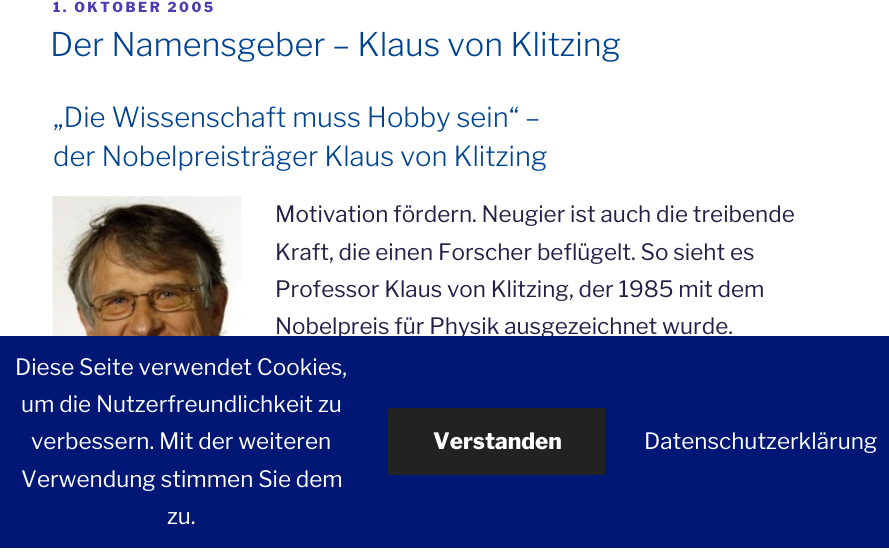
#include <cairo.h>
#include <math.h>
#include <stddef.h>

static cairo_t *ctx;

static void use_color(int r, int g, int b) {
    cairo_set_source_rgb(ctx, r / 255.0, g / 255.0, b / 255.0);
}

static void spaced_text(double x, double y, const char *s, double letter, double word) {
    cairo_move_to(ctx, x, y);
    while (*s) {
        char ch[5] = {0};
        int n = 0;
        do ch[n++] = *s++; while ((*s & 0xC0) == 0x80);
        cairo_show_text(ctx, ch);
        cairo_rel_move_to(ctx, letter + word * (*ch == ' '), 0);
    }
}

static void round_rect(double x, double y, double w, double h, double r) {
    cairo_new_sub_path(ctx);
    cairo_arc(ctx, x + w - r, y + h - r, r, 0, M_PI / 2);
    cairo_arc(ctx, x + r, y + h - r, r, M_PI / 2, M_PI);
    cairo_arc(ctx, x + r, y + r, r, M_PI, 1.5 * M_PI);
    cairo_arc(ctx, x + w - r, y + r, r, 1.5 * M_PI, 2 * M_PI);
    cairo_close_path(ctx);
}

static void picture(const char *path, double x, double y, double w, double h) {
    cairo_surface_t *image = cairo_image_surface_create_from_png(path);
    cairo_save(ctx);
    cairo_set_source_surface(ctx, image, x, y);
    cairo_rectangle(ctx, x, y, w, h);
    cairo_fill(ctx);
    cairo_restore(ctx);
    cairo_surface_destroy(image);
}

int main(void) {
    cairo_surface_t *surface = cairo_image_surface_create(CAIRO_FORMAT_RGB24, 889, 560);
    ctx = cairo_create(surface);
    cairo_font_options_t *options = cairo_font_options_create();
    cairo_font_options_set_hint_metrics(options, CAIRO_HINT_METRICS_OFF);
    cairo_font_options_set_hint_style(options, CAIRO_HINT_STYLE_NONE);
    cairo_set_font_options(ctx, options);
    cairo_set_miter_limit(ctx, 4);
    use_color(255, 255, 255);
    cairo_paint(ctx);
    cairo_select_font_face(ctx, "Libre Franklin Thin", CAIRO_FONT_SLANT_NORMAL, CAIRO_FONT_WEIGHT_NORMAL);
    cairo_set_font_size(ctx, 13.75);
    use_color(78, 59, 176);
    spaced_text(53, 12, "1. OKTOBER 2005", 2.5, 0);
    cairo_select_font_face(ctx, "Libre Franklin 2 Thin", CAIRO_FONT_SLANT_NORMAL, CAIRO_FONT_WEIGHT_NORMAL);
    cairo_set_font_size(ctx, 32.5);
    use_color(0, 67, 145);
    cairo_move_to(ctx, 50, 56);
    cairo_show_text(ctx, "Der Namensgeber – Klaus von Klitzing");
    cairo_set_font_size(ctx, 27.5);
    cairo_move_to(ctx, 53, 127);
    cairo_show_text(ctx, "„Die Wissenschaft muss Hobby sein“ –");
    cairo_move_to(ctx, 53, 166);
    cairo_show_text(ctx, "der Nobelpreisträger Klaus von Klitzing");
    picture("img1.png", 52, 196, 190, 140);
    cairo_select_font_face(ctx, "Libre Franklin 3 Thin", CAIRO_FONT_SLANT_NORMAL, CAIRO_FONT_WEIGHT_NORMAL);
    cairo_set_font_size(ctx, 22.5);
    use_color(37, 31, 71);
    cairo_move_to(ctx, 275, 222);
    cairo_show_text(ctx, "Motivation fördern. Neugier ist auch die treibende");
    cairo_move_to(ctx, 275, 260);
    cairo_show_text(ctx, "Kraft, die einen Forscher beflügelt. So sieht es");
    cairo_move_to(ctx, 275, 297);
    cairo_show_text(ctx, "Professor Klaus von Klitzing, der 1985 mit dem");
    cairo_move_to(ctx, 275, 334);
    cairo_show_text(ctx, "Nobelpreis für Physik ausgezeichnet wurde.");
    use_color(0, 23, 117);
    cairo_rectangle(ctx, 0, 336, 889, 212);
    cairo_fill(ctx);
    use_color(255, 255, 255);
    cairo_move_to(ctx, 15, 375);
    cairo_show_text(ctx, "Diese Seite verwendet Cookies,");
    cairo_move_to(ctx, 21, 412);
    cairo_show_text(ctx, "um die Nutzerfreundlichkeit zu");
    cairo_move_to(ctx, 31, 449);
    cairo_show_text(ctx, "verbessern. Mit der weiteren");
    cairo_move_to(ctx, 21, 487);
    cairo_show_text(ctx, "Verwendung stimmen Sie dem");
    cairo_move_to(ctx, 167, 524);
    cairo_show_text(ctx, "zu.");
    use_color(34, 34, 34);
    round_rect(388, 408, 218, 67, 2.5);
    cairo_fill(ctx);
    cairo_select_font_face(ctx, "Libre Franklin Thin", CAIRO_FONT_SLANT_NORMAL, CAIRO_FONT_WEIGHT_NORMAL);
    use_color(255, 255, 255);
    cairo_move_to(ctx, 433, 449);
    cairo_show_text(ctx, "Verstanden");
    cairo_select_font_face(ctx, "Libre Franklin 3 Thin", CAIRO_FONT_SLANT_NORMAL, CAIRO_FONT_WEIGHT_NORMAL);
    cairo_move_to(ctx, 644, 449);
    cairo_show_text(ctx, "Datenschutzerklärung");
    cairo_surface_write_to_png(surface, "result.png");
    cairo_font_options_destroy(options);
    cairo_destroy(ctx);
    cairo_surface_destroy(surface);
    return 0;
}
